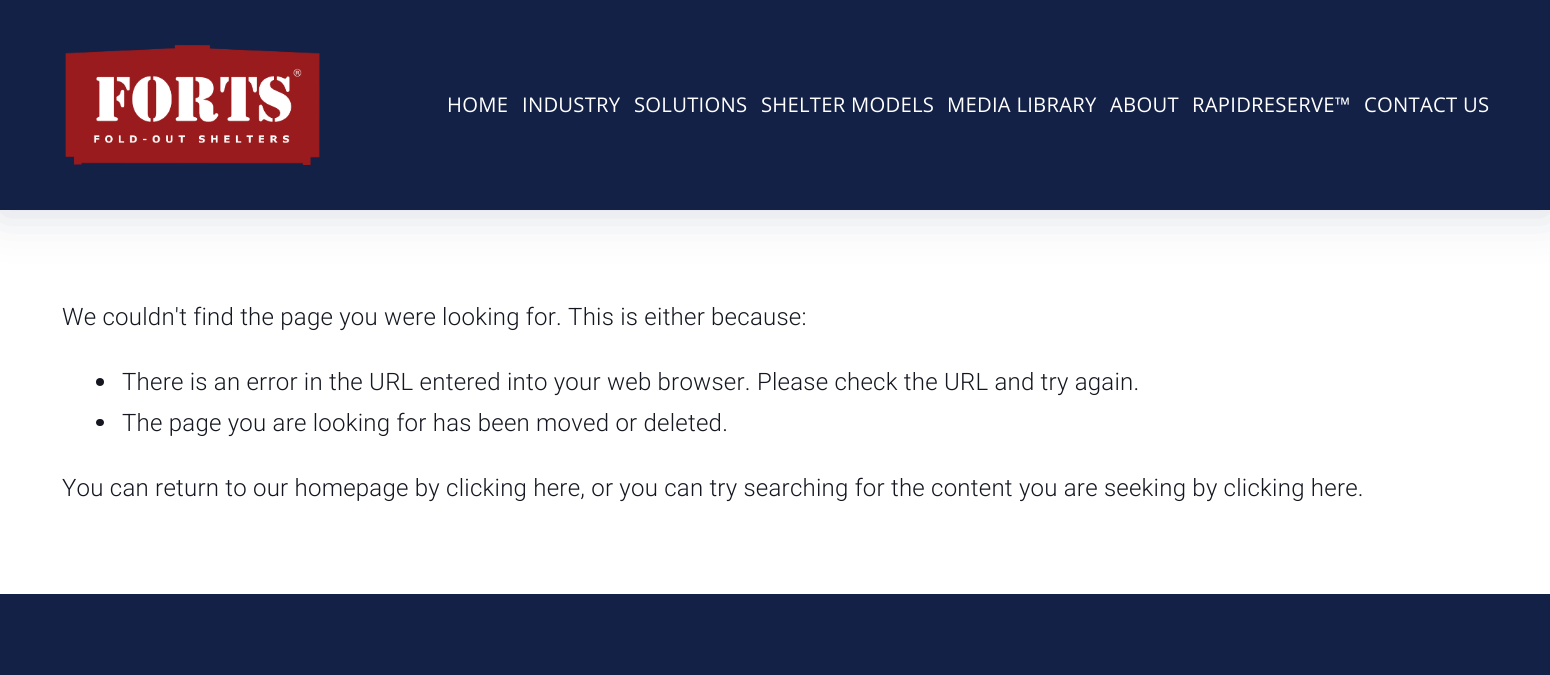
#include <cairo.h>
#include <math.h>
#include <stddef.h>

static cairo_t *ctx;

static void use_color(int r, int g, int b) {
    cairo_set_source_rgb(ctx, r / 255.0, g / 255.0, b / 255.0);
}

static void spaced_text(double x, double y, const char *s, double letter, double word) {
    cairo_move_to(ctx, x, y);
    while (*s) {
        char ch[5] = {0};
        int n = 0;
        do ch[n++] = *s++; while ((*s & 0xC0) == 0x80);
        cairo_show_text(ctx, ch);
        cairo_rel_move_to(ctx, letter + word * (*ch == ' '), 0);
    }
}

static void round_rect(double x, double y, double w, double h, double r) {
    cairo_new_sub_path(ctx);
    cairo_arc(ctx, x + w - r, y + h - r, r, 0, M_PI / 2);
    cairo_arc(ctx, x + r, y + h - r, r, M_PI / 2, M_PI);
    cairo_arc(ctx, x + r, y + r, r, M_PI, 1.5 * M_PI);
    cairo_arc(ctx, x + w - r, y + r, r, 1.5 * M_PI, 2 * M_PI);
    cairo_close_path(ctx);
}

static void shadow(double x, double y, double w, double h, double r, double blur, double alpha) {
    cairo_push_group_with_content(ctx, CAIRO_CONTENT_ALPHA);
    cairo_set_operator(ctx, CAIRO_OPERATOR_SOURCE);
    for (int i = 15; i >= -15 && fmin(w, h) + blur * i / 3 > 0; i -= 2) {
        double e = blur * i / 6;
        cairo_set_source_rgba(ctx, 0, 0, 0, alpha * erfc((i - 1) / 8.5) / 2);
        round_rect(x - e, y - e, w + 2 * e, h + 2 * e, fmax(0, fmin(r + e + blur * .6, fmin(w, h) / 2 + e)));
        cairo_fill(ctx);
    }
    cairo_pattern_t *soft = cairo_pop_group(ctx);
    cairo_mask(ctx, soft);
    cairo_pattern_destroy(soft);
}

static void picture(const char *path, double x, double y, double w, double h) {
    cairo_surface_t *image = cairo_image_surface_create_from_png(path);
    cairo_save(ctx);
    cairo_set_source_surface(ctx, image, x, y);
    cairo_rectangle(ctx, x, y, w, h);
    cairo_fill(ctx);
    cairo_restore(ctx);
    cairo_surface_destroy(image);
}

int main(void) {
    cairo_surface_t *surface = cairo_image_surface_create(CAIRO_FORMAT_RGB24, 1550, 675);
    ctx = cairo_create(surface);
    cairo_font_options_t *options = cairo_font_options_create();
    cairo_font_options_set_hint_metrics(options, CAIRO_HINT_METRICS_OFF);
    cairo_font_options_set_hint_style(options, CAIRO_HINT_STYLE_NONE);
    cairo_set_font_options(ctx, options);
    cairo_set_miter_limit(ctx, 4);
    use_color(255, 255, 255);
    cairo_paint(ctx);
    use_color(220, 222, 228);
    shadow(0, 5, 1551, 210, 0, 22.5, 1);
    use_color(19, 33, 71);
    cairo_rectangle(ctx, 0, 0, 1550, 210);
    cairo_fill(ctx);
    picture("img1.png", 65, 45, 255, 120);
    cairo_select_font_face(ctx, "Open Sans", CAIRO_FONT_SLANT_NORMAL, CAIRO_FONT_WEIGHT_NORMAL);
    cairo_set_font_size(ctx, 20.25);
    use_color(255, 255, 255);
    spaced_text(447, 112, "HOME", 0.25, 0);
    spaced_text(522, 112, "INDUSTRY", 0.25, 0);
    spaced_text(634, 112, "SOLUTIONS", 0.25, 0);
    spaced_text(761, 112, "SHELTER MODELS", 0.25, 0);
    spaced_text(947, 112, "MEDIA LIBRARY", 0.25, 0);
    spaced_text(1110, 112, "ABOUT", 0.25, 0);
    spaced_text(1192, 112, "RAPIDRESERVE™", 0.25, 0);
    spaced_text(1364, 112, "CONTACT US", 0.25, 0);
    cairo_select_font_face(ctx, "Roboto Light", CAIRO_FONT_SLANT_NORMAL, CAIRO_FONT_WEIGHT_NORMAL);
    cairo_set_font_size(ctx, 24);
    use_color(20, 23, 32);
    spaced_text(62, 325, "We couldn't find the page you were looking for. This is either because:", 0.24, 0);
    cairo_new_path(ctx);
    cairo_arc(ctx, 100, 382, 4, 0, 2 * M_PI);
    cairo_fill(ctx);
    spaced_text(122, 390, "There is an error in the URL entered into your web browser. Please check the URL and try again.", 0.24, 0);
    round_rect(96, 419, 8, 7, 3.5);
    cairo_fill(ctx);
    spaced_text(122, 431, "The page you are looking for has been moved or deleted.", 0.24, 0);
    spaced_text(62, 496, "You can return to our homepage by clicking here, or you can try searching for the content you are seeking by clicking here.", 0.24, 0);
    use_color(19, 33, 71);
    cairo_rectangle(ctx, 0, 594, 1550, 81);
    cairo_fill(ctx);
    cairo_surface_write_to_png(surface, "result.png");
    cairo_font_options_destroy(options);
    cairo_destroy(ctx);
    cairo_surface_destroy(surface);
    return 0;
}
